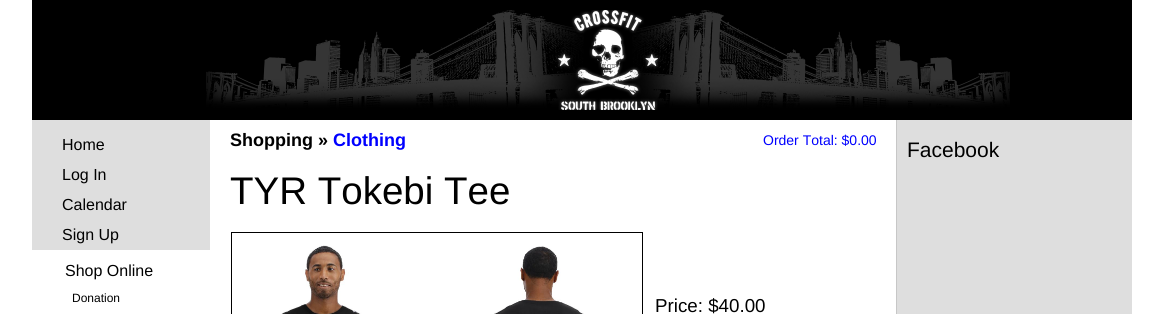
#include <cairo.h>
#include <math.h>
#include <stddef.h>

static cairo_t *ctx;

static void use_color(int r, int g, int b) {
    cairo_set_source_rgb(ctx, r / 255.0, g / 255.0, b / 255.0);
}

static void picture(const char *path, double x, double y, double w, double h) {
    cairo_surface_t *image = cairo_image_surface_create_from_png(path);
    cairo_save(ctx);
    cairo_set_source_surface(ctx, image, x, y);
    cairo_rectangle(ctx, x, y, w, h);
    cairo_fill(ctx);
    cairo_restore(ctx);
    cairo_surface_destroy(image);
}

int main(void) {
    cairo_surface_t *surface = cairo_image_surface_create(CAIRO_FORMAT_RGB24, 1164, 314);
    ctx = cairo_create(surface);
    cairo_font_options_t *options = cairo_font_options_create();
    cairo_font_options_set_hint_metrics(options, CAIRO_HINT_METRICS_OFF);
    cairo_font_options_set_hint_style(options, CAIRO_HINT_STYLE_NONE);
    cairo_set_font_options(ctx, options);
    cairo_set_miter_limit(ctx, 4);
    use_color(255, 255, 255);
    cairo_paint(ctx);
    use_color(0, 0, 0);
    cairo_rectangle(ctx, 32, 0, 1100, 120);
    cairo_fill(ctx);
    picture("img1.png", 206, 10, 804, 100);
    use_color(222, 222, 222);
    cairo_rectangle(ctx, 32, 120, 178, 130);
    cairo_fill(ctx);
    cairo_select_font_face(ctx, "Liberation Sans", CAIRO_FONT_SLANT_NORMAL, CAIRO_FONT_WEIGHT_NORMAL);
    cairo_set_font_size(ctx, 16);
    use_color(0, 0, 0);
    cairo_move_to(ctx, 62, 150);
    cairo_show_text(ctx, "Home");
    cairo_move_to(ctx, 62, 180);
    cairo_show_text(ctx, "Log In");
    cairo_move_to(ctx, 62, 210);
    cairo_show_text(ctx, "Calendar");
    cairo_move_to(ctx, 62, 240);
    cairo_show_text(ctx, "Sign Up");
    cairo_move_to(ctx, 65, 276);
    cairo_show_text(ctx, "Shop Online");
    cairo_set_font_size(ctx, 12);
    cairo_move_to(ctx, 72, 302);
    cairo_show_text(ctx, "Donation");
    cairo_select_font_face(ctx, "Liberation Sans", CAIRO_FONT_SLANT_NORMAL, CAIRO_FONT_WEIGHT_BOLD);
    cairo_set_font_size(ctx, 18);
    cairo_move_to(ctx, 230, 146);
    cairo_show_text(ctx, "Shopping »");
    use_color(0, 0, 255);
    cairo_move_to(ctx, 333, 146);
    cairo_show_text(ctx, "Clothing");
    cairo_select_font_face(ctx, "Liberation Sans", CAIRO_FONT_SLANT_NORMAL, CAIRO_FONT_WEIGHT_NORMAL);
    cairo_set_font_size(ctx, 14);
    cairo_move_to(ctx, 763, 145);
    cairo_show_text(ctx, "Order Total: $0.00");
    cairo_set_font_size(ctx, 38.5);
    use_color(0, 0, 0);
    cairo_move_to(ctx, 230, 204);
    cairo_show_text(ctx, "TYR Tokebi Tee");
    cairo_rectangle(ctx, 231.5, 232.5, 411, 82);
    cairo_set_line_width(ctx, 1);
    cairo_stroke(ctx);
    picture("img2.png", 281, 245, 303, 69);
    cairo_set_font_size(ctx, 18.75);
    cairo_move_to(ctx, 655, 312);
    cairo_show_text(ctx, "Price: $40.00");
    use_color(222, 222, 222);
    cairo_rectangle(ctx, 897, 120, 235, 194);
    cairo_fill(ctx);
    use_color(199, 199, 199);
    cairo_rectangle(ctx, 896, 120, 1, 194);
    cairo_fill(ctx);
    cairo_set_font_size(ctx, 21);
    use_color(0, 0, 0);
    cairo_move_to(ctx, 907, 157);
    cairo_show_text(ctx, "Facebook");
    cairo_surface_write_to_png(surface, "result.png");
    cairo_font_options_destroy(options);
    cairo_destroy(ctx);
    cairo_surface_destroy(surface);
    return 0;
}
